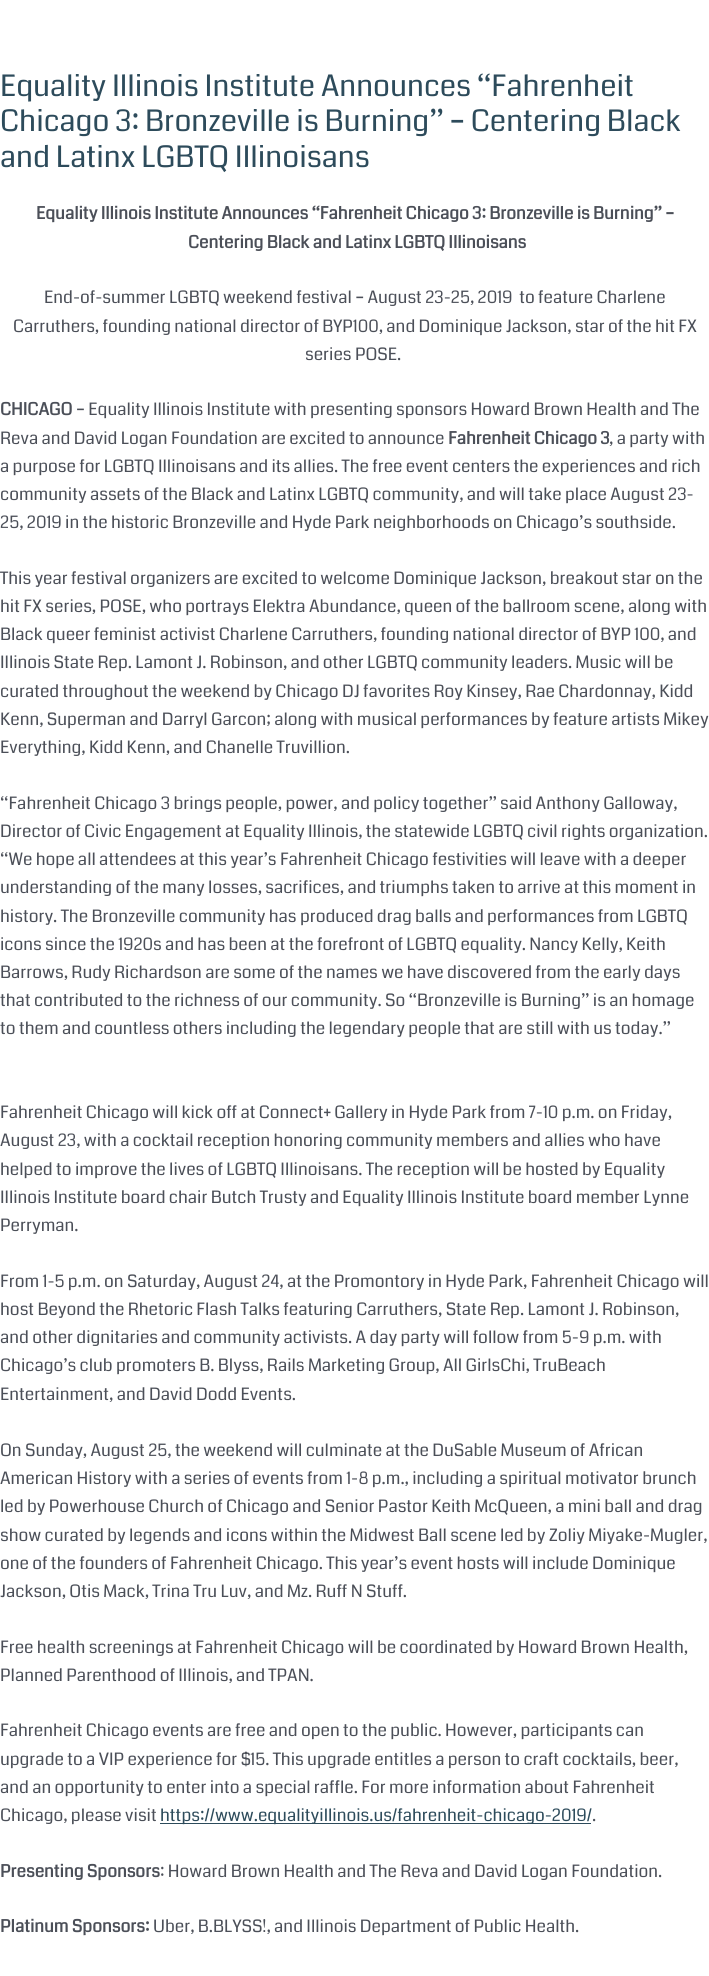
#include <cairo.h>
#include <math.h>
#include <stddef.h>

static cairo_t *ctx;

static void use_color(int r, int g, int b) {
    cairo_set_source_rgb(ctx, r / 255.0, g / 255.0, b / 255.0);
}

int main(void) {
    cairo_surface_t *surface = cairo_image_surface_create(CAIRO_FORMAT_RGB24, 709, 1976);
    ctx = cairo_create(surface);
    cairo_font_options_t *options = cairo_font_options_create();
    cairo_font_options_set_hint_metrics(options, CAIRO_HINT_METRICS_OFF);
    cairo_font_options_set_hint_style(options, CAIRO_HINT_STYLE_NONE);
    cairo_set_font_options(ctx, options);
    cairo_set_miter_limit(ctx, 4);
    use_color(255, 255, 255);
    cairo_paint(ctx);
    cairo_select_font_face(ctx, "Coda", CAIRO_FONT_SLANT_NORMAL, CAIRO_FONT_WEIGHT_NORMAL);
    cairo_set_font_size(ctx, 29.6);
    use_color(45, 75, 91);
    cairo_move_to(ctx, 0, 96);
    cairo_show_text(ctx, "Equality Illinois Institute Announces “Fahrenheit");
    cairo_move_to(ctx, 0, 131);
    cairo_show_text(ctx, "Chicago 3: Bronzeville is Burning” – Centering Black");
    cairo_move_to(ctx, 0, 167);
    cairo_show_text(ctx, "and Latinx LGBTQ Illinoisans");
    cairo_select_font_face(ctx, "Coda", CAIRO_FONT_SLANT_NORMAL, CAIRO_FONT_WEIGHT_BOLD);
    cairo_set_font_size(ctx, 17.1);
    use_color(75, 79, 88);
    cairo_move_to(ctx, 36, 219);
    cairo_show_text(ctx, "Equality Illinois Institute Announces “Fahrenheit Chicago 3: Bronzeville is Burning” –");
    cairo_move_to(ctx, 188, 248);
    cairo_show_text(ctx, "Centering Black and Latinx LGBTQ Illinoisans");
    cairo_select_font_face(ctx, "Coda", CAIRO_FONT_SLANT_NORMAL, CAIRO_FONT_WEIGHT_NORMAL);
    cairo_move_to(ctx, 44, 303);
    cairo_show_text(ctx, "End-of-summer LGBTQ weekend festival – August 23-25, 2019  to feature Charlene");
    cairo_move_to(ctx, 13, 332);
    cairo_show_text(ctx, "Carruthers, founding national director of BYP100, and Dominique Jackson, star of the hit FX");
    cairo_move_to(ctx, 305, 360);
    cairo_show_text(ctx, "series POSE.");
    cairo_select_font_face(ctx, "Coda", CAIRO_FONT_SLANT_NORMAL, CAIRO_FONT_WEIGHT_BOLD);
    cairo_move_to(ctx, 0, 415);
    cairo_show_text(ctx, "CHICAGO");
    cairo_select_font_face(ctx, "Coda", CAIRO_FONT_SLANT_NORMAL, CAIRO_FONT_WEIGHT_NORMAL);
    cairo_move_to(ctx, 76, 415);
    cairo_show_text(ctx, "– Equality Illinois Institute with presenting sponsors Howard Brown Health and The");
    cairo_move_to(ctx, 0, 444);
    cairo_show_text(ctx, "Reva and David Logan Foundation are excited to announce");
    cairo_select_font_face(ctx, "Coda", CAIRO_FONT_SLANT_NORMAL, CAIRO_FONT_WEIGHT_BOLD);
    cairo_move_to(ctx, 448, 444);
    cairo_show_text(ctx, "Fahrenheit Chicago 3");
    cairo_select_font_face(ctx, "Coda", CAIRO_FONT_SLANT_NORMAL, CAIRO_FONT_WEIGHT_NORMAL);
    cairo_move_to(ctx, 609, 444);
    cairo_show_text(ctx, ", a party with");
    cairo_move_to(ctx, 0, 472);
    cairo_show_text(ctx, "a purpose for LGBTQ Illinoisans and its allies. The free event centers the experiences and rich");
    cairo_move_to(ctx, 0, 500);
    cairo_show_text(ctx, "community assets of the Black and Latinx LGBTQ community, and will take place August 23-");
    cairo_move_to(ctx, 0, 528);
    cairo_show_text(ctx, "25, 2019 in the historic Bronzeville and Hyde Park neighborhoods on Chicago’s southside.");
    cairo_move_to(ctx, 0, 584);
    cairo_show_text(ctx, "This year festival organizers are excited to welcome Dominique Jackson, breakout star on the");
    cairo_move_to(ctx, 0, 612);
    cairo_show_text(ctx, "hit FX series, POSE, who portrays Elektra Abundance, queen of the ballroom scene, along with");
    cairo_move_to(ctx, 0, 640);
    cairo_show_text(ctx, "Black queer feminist activist Charlene Carruthers, founding national director of BYP 100, and");
    cairo_move_to(ctx, 0, 668);
    cairo_show_text(ctx, "Illinois State Rep. Lamont J. Robinson, and other LGBTQ community leaders. Music will be");
    cairo_move_to(ctx, 0, 697);
    cairo_show_text(ctx, "curated throughout the weekend by Chicago DJ favorites Roy Kinsey, Rae Chardonnay, Kidd");
    cairo_move_to(ctx, 0, 725);
    cairo_show_text(ctx, "Kenn, Superman and Darryl Garcon; along with musical performances by feature artists Mikey");
    cairo_move_to(ctx, 0, 753);
    cairo_show_text(ctx, "Everything, Kidd Kenn, and Chanelle Truvillion.");
    cairo_move_to(ctx, 0, 809);
    cairo_show_text(ctx, "“Fahrenheit Chicago 3 brings people, power, and policy together” said Anthony Galloway,");
    cairo_move_to(ctx, 0, 837);
    cairo_show_text(ctx, "Director of Civic Engagement at Equality Illinois, the statewide LGBTQ civil rights organization.");
    cairo_move_to(ctx, 0, 865);
    cairo_show_text(ctx, "“We hope all attendees at this year’s Fahrenheit Chicago festivities will leave with a deeper");
    cairo_move_to(ctx, 0, 893);
    cairo_show_text(ctx, "understanding of the many losses, sacrifices, and triumphs taken to arrive at this moment in");
    cairo_move_to(ctx, 0, 922);
    cairo_show_text(ctx, "history. The Bronzeville community has produced drag balls and performances from LGBTQ");
    cairo_move_to(ctx, 0, 950);
    cairo_show_text(ctx, "icons since the 1920s and has been at the forefront of LGBTQ equality. Nancy Kelly, Keith");
    cairo_move_to(ctx, 0, 978);
    cairo_show_text(ctx, "Barrows, Rudy Richardson are some of the names we have discovered from the early days");
    cairo_move_to(ctx, 0, 1006);
    cairo_show_text(ctx, "that contributed to the richness of our community. So “Bronzeville is Burning” is an homage");
    cairo_move_to(ctx, 0, 1034);
    cairo_show_text(ctx, "to them and countless others including the legendary people that are still with us today.”");
    cairo_move_to(ctx, 0, 1118);
    cairo_show_text(ctx, "Fahrenheit Chicago will kick off at Connect+ Gallery in Hyde Park from 7-10 p.m. on Friday,");
    cairo_move_to(ctx, 0, 1146);
    cairo_show_text(ctx, "August 23, with a cocktail reception honoring community members and allies who have");
    cairo_move_to(ctx, 0, 1175);
    cairo_show_text(ctx, "helped to improve the lives of LGBTQ Illinoisans. The reception will be hosted by Equality");
    cairo_move_to(ctx, 0, 1203);
    cairo_show_text(ctx, "Illinois Institute board chair Butch Trusty and Equality Illinois Institute board member Lynne");
    cairo_move_to(ctx, 0, 1231);
    cairo_show_text(ctx, "Perryman.");
    cairo_move_to(ctx, 0, 1287);
    cairo_show_text(ctx, "From 1-5 p.m. on Saturday, August 24, at the Promontory in Hyde Park, Fahrenheit Chicago will");
    cairo_move_to(ctx, 0, 1315);
    cairo_show_text(ctx, "host Beyond the Rhetoric Flash Talks featuring Carruthers, State Rep. Lamont J. Robinson,");
    cairo_move_to(ctx, 0, 1343);
    cairo_show_text(ctx, "and other dignitaries and community activists. A day party will follow from 5-9 p.m. with");
    cairo_move_to(ctx, 0, 1371);
    cairo_show_text(ctx, "Chicago’s club promoters B. Blyss, Rails Marketing Group, All GirlsChi, TruBeach");
    cairo_move_to(ctx, 0, 1400);
    cairo_show_text(ctx, "Entertainment, and David Dodd Events.");
    cairo_move_to(ctx, 0, 1456);
    cairo_show_text(ctx, "On Sunday, August 25, the weekend will culminate at the DuSable Museum of African");
    cairo_move_to(ctx, 0, 1484);
    cairo_show_text(ctx, "American History with a series of events from 1-8 p.m., including a spiritual motivator brunch");
    cairo_move_to(ctx, 0, 1512);
    cairo_show_text(ctx, "led by Powerhouse Church of Chicago and Senior Pastor Keith McQueen, a mini ball and drag");
    cairo_move_to(ctx, 0, 1541);
    cairo_show_text(ctx, "show curated by legends and icons within the Midwest Ball scene led by Zoliy Miyake-Mugler,");
    cairo_move_to(ctx, 0, 1569);
    cairo_show_text(ctx, "one of the founders of Fahrenheit Chicago. This year’s event hosts will include Dominique");
    cairo_move_to(ctx, 0, 1597);
    cairo_show_text(ctx, "Jackson, Otis Mack, Trina Tru Luv, and Mz. Ruff N Stuff.");
    cairo_move_to(ctx, 0, 1653);
    cairo_show_text(ctx, "Free health screenings at Fahrenheit Chicago will be coordinated by Howard Brown Health,");
    cairo_move_to(ctx, 0, 1681);
    cairo_show_text(ctx, "Planned Parenthood of Illinois, and TPAN.");
    cairo_move_to(ctx, 0, 1736);
    cairo_show_text(ctx, "Fahrenheit Chicago events are free and open to the public. However, participants can");
    cairo_move_to(ctx, 0, 1765);
    cairo_show_text(ctx, "upgrade to a VIP experience for $15. This upgrade entitles a person to craft cocktails, beer,");
    cairo_move_to(ctx, 0, 1793);
    cairo_show_text(ctx, "and an opportunity to enter into a special raffle. For more information about Fahrenheit");
    cairo_move_to(ctx, 0, 1821);
    cairo_show_text(ctx, "Chicago, please visit");
    use_color(45, 75, 91);
    cairo_rectangle(ctx, 160, 1823, 431, 1);
    cairo_fill(ctx);
    cairo_move_to(ctx, 160, 1821);
    cairo_show_text(ctx, "https://www.equalityillinois.us/fahrenheit-chicago-2019/");
    use_color(75, 79, 88);
    cairo_move_to(ctx, 592, 1821);
    cairo_show_text(ctx, ".");
    cairo_select_font_face(ctx, "Coda", CAIRO_FONT_SLANT_NORMAL, CAIRO_FONT_WEIGHT_BOLD);
    cairo_move_to(ctx, 0, 1877);
    cairo_show_text(ctx, "Presenting Sponsors");
    cairo_select_font_face(ctx, "Coda", CAIRO_FONT_SLANT_NORMAL, CAIRO_FONT_WEIGHT_NORMAL);
    cairo_move_to(ctx, 160, 1877);
    cairo_show_text(ctx, ": Howard Brown Health and The Reva and David Logan Foundation.");
    cairo_select_font_face(ctx, "Coda", CAIRO_FONT_SLANT_NORMAL, CAIRO_FONT_WEIGHT_BOLD);
    cairo_move_to(ctx, 0, 1932);
    cairo_show_text(ctx, "Platinum Sponsors:");
    cairo_select_font_face(ctx, "Coda", CAIRO_FONT_SLANT_NORMAL, CAIRO_FONT_WEIGHT_NORMAL);
    cairo_move_to(ctx, 153, 1932);
    cairo_show_text(ctx, "Uber, B.BLYSS!, and Illinois Department of Public Health.");
    cairo_surface_write_to_png(surface, "result.png");
    cairo_font_options_destroy(options);
    cairo_destroy(ctx);
    cairo_surface_destroy(surface);
    return 0;
}
